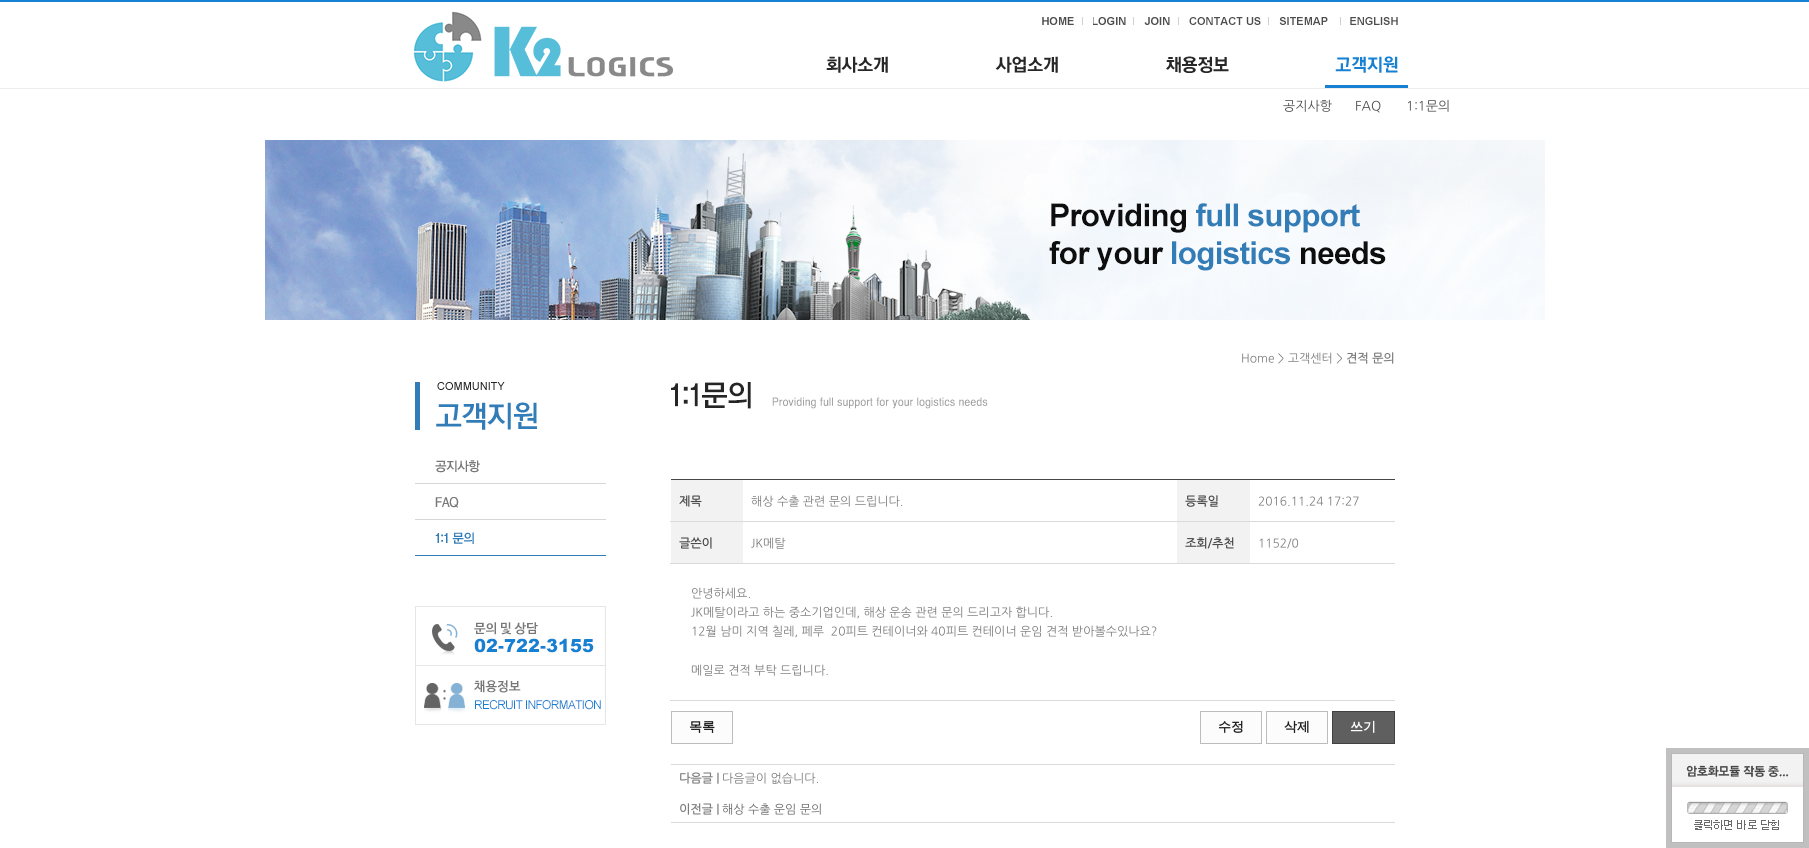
#include <cairo.h>
#include <math.h>
#include <stddef.h>

static cairo_t *ctx;

static void use_color(int r, int g, int b) {
    cairo_set_source_rgb(ctx, r / 255.0, g / 255.0, b / 255.0);
}

static void picture(const char *path, double x, double y, double w, double h) {
    cairo_surface_t *image = cairo_image_surface_create_from_png(path);
    cairo_save(ctx);
    cairo_set_source_surface(ctx, image, x, y);
    cairo_rectangle(ctx, x, y, w, h);
    cairo_fill(ctx);
    cairo_restore(ctx);
    cairo_surface_destroy(image);
}

int main(void) {
    cairo_surface_t *surface = cairo_image_surface_create(CAIRO_FORMAT_RGB24, 1809, 848);
    ctx = cairo_create(surface);
    cairo_font_options_t *options = cairo_font_options_create();
    cairo_font_options_set_hint_metrics(options, CAIRO_HINT_METRICS_OFF);
    cairo_font_options_set_hint_style(options, CAIRO_HINT_STYLE_NONE);
    cairo_set_font_options(ctx, options);
    cairo_set_miter_limit(ctx, 4);
    use_color(255, 255, 255);
    cairo_paint(ctx);
    picture("img1.png", 0, 0, 1809, 89);
    picture("img2.png", 413, 11, 260, 71);
    picture("img3.png", 1042, 17, 41, 8);
    picture("img4.png", 1093, 17, 41, 8);
    picture("img5.png", 1144, 17, 35, 8);
    picture("img6.png", 1189, 17, 80, 8);
    picture("img7.png", 1279, 17, 49, 8);
    picture("img8.png", 1340, 17, 58, 8);
    picture("img9.png", 826, 56, 62, 17);
    picture("img10.png", 995, 56, 63, 17);
    picture("img11.png", 1166, 56, 63, 17);
    picture("img12.png", 1325, 56, 83, 32);
    cairo_select_font_face(ctx, "NanumGothic", CAIRO_FONT_SLANT_NORMAL, CAIRO_FONT_WEIGHT_NORMAL);
    cairo_set_font_size(ctx, 13);
    use_color(76, 76, 76);
    cairo_move_to(ctx, 1283, 110);
    cairo_show_text(ctx, "공지사항");
    cairo_move_to(ctx, 1355, 110);
    cairo_show_text(ctx, "FAQ");
    cairo_move_to(ctx, 1406, 110);
    cairo_show_text(ctx, "1:1문의");
    picture("img13.png", 265, 140, 1280, 180);
    picture("img14.png", 415, 382, 122, 48);
    picture("img15.png", 415, 460, 191, 24);
    picture("img16.png", 415, 497, 191, 23);
    picture("img17.png", 415, 532, 191, 24);
    picture("img18.png", 415, 606, 191, 60);
    picture("img19.png", 415, 666, 191, 59);
    cairo_set_font_size(ctx, 12);
    use_color(123, 123, 123);
    cairo_move_to(ctx, 1241, 362);
    cairo_show_text(ctx, "Home > 고객센터 >");
    cairo_select_font_face(ctx, "NanumGothic", CAIRO_FONT_SLANT_NORMAL, CAIRO_FONT_WEIGHT_BOLD);
    cairo_move_to(ctx, 1346, 362);
    cairo_show_text(ctx, "견적 문의");
    picture("img20.png", 671, 382, 317, 27);
    use_color(70, 70, 70);
    cairo_rectangle(ctx, 671, 479, 724, 1);
    cairo_fill(ctx);
    use_color(242, 242, 242);
    cairo_rectangle(ctx, 671, 480, 72, 41);
    cairo_fill(ctx);
    use_color(70, 70, 70);
    cairo_move_to(ctx, 679, 505);
    cairo_show_text(ctx, "제목");
    cairo_select_font_face(ctx, "NanumGothic", CAIRO_FONT_SLANT_NORMAL, CAIRO_FONT_WEIGHT_NORMAL);
    use_color(123, 123, 123);
    cairo_move_to(ctx, 751, 505);
    cairo_show_text(ctx, "해상 수출 관련 문의 드립니다.");
    use_color(242, 242, 242);
    cairo_rectangle(ctx, 1177, 480, 73, 41);
    cairo_fill(ctx);
    cairo_select_font_face(ctx, "NanumGothic", CAIRO_FONT_SLANT_NORMAL, CAIRO_FONT_WEIGHT_BOLD);
    use_color(70, 70, 70);
    cairo_move_to(ctx, 1185, 505);
    cairo_show_text(ctx, "등록일");
    use_color(218, 218, 218);
    cairo_rectangle(ctx, 670, 521, 725, 1);
    cairo_fill(ctx);
    cairo_select_font_face(ctx, "NanumGothic", CAIRO_FONT_SLANT_NORMAL, CAIRO_FONT_WEIGHT_NORMAL);
    use_color(123, 123, 123);
    cairo_move_to(ctx, 1258, 505);
    cairo_show_text(ctx, "2016.11.24 17:27");
    use_color(242, 242, 242);
    cairo_rectangle(ctx, 671, 522, 72, 41);
    cairo_fill(ctx);
    cairo_select_font_face(ctx, "NanumGothic", CAIRO_FONT_SLANT_NORMAL, CAIRO_FONT_WEIGHT_BOLD);
    use_color(70, 70, 70);
    cairo_move_to(ctx, 679, 547);
    cairo_show_text(ctx, "글쓴이");
    cairo_select_font_face(ctx, "NanumGothic", CAIRO_FONT_SLANT_NORMAL, CAIRO_FONT_WEIGHT_NORMAL);
    use_color(123, 123, 123);
    cairo_move_to(ctx, 751, 547);
    cairo_show_text(ctx, "JK메탈");
    use_color(242, 242, 242);
    cairo_rectangle(ctx, 1177, 522, 73, 41);
    cairo_fill(ctx);
    cairo_select_font_face(ctx, "NanumGothic", CAIRO_FONT_SLANT_NORMAL, CAIRO_FONT_WEIGHT_BOLD);
    use_color(70, 70, 70);
    cairo_move_to(ctx, 1185, 547);
    cairo_show_text(ctx, "조회/추천");
    use_color(218, 218, 218);
    cairo_rectangle(ctx, 670, 563, 725, 1);
    cairo_fill(ctx);
    cairo_select_font_face(ctx, "NanumGothic", CAIRO_FONT_SLANT_NORMAL, CAIRO_FONT_WEIGHT_NORMAL);
    use_color(123, 123, 123);
    cairo_move_to(ctx, 1258, 547);
    cairo_show_text(ctx, "1152/0");
    use_color(218, 218, 218);
    cairo_rectangle(ctx, 670, 700, 725, 1);
    cairo_fill(ctx);
    use_color(123, 123, 123);
    cairo_move_to(ctx, 691, 597);
    cairo_show_text(ctx, "안녕하세요.");
    cairo_move_to(ctx, 691, 616);
    cairo_show_text(ctx, "JK메탈이라고 하는 중소기업인데, 해상 운송 관련 문의 드리고자 합니다.");
    cairo_move_to(ctx, 691, 635);
    cairo_show_text(ctx, "12월 남미 지역 칠레, 페루  20피트 컨테이너와 40피트 컨테이너 운임 견적 받아볼수있나요?");
    cairo_move_to(ctx, 691, 674);
    cairo_show_text(ctx, "메일로 견적 부탁 드립니다.");
    use_color(252, 252, 252);
    cairo_rectangle(ctx, 671.5, 711.5, 61, 32);
    cairo_fill_preserve(ctx);
    use_color(188, 188, 188);
    cairo_set_line_width(ctx, 1);
    cairo_stroke(ctx);
    cairo_select_font_face(ctx, "WenQuanYi Zen Hei", CAIRO_FONT_SLANT_NORMAL, CAIRO_FONT_WEIGHT_BOLD);
    cairo_set_font_size(ctx, 13);
    use_color(31, 31, 31);
    cairo_move_to(ctx, 689, 731);
    cairo_show_text(ctx, "목록");
    use_color(252, 252, 252);
    cairo_rectangle(ctx, 1200.5, 711.5, 61, 32);
    cairo_fill_preserve(ctx);
    use_color(188, 188, 188);
    cairo_stroke(ctx);
    use_color(31, 31, 31);
    cairo_move_to(ctx, 1218, 731);
    cairo_show_text(ctx, "수정");
    use_color(252, 252, 252);
    cairo_rectangle(ctx, 1266.5, 711.5, 61, 32);
    cairo_fill_preserve(ctx);
    use_color(188, 188, 188);
    cairo_stroke(ctx);
    use_color(31, 31, 31);
    cairo_move_to(ctx, 1284, 731);
    cairo_show_text(ctx, "삭제");
    use_color(95, 95, 95);
    cairo_rectangle(ctx, 1332.5, 711.5, 62, 32);
    cairo_fill_preserve(ctx);
    use_color(64, 65, 68);
    cairo_stroke(ctx);
    use_color(255, 255, 255);
    cairo_move_to(ctx, 1350, 731);
    cairo_show_text(ctx, "쓰기");
    use_color(218, 218, 218);
    cairo_rectangle(ctx, 671, 764, 724, 1);
    cairo_fill(ctx);
    cairo_select_font_face(ctx, "NanumGothic", CAIRO_FONT_SLANT_NORMAL, CAIRO_FONT_WEIGHT_BOLD);
    cairo_set_font_size(ctx, 12);
    use_color(123, 123, 123);
    cairo_move_to(ctx, 679, 782);
    cairo_show_text(ctx, "다음글 |");
    cairo_select_font_face(ctx, "NanumGothic", CAIRO_FONT_SLANT_NORMAL, CAIRO_FONT_WEIGHT_NORMAL);
    cairo_move_to(ctx, 722, 782);
    cairo_show_text(ctx, "다음글이 없습니다.");
    use_color(218, 218, 218);
    cairo_rectangle(ctx, 671, 822, 724, 1);
    cairo_fill(ctx);
    cairo_select_font_face(ctx, "NanumGothic", CAIRO_FONT_SLANT_NORMAL, CAIRO_FONT_WEIGHT_BOLD);
    use_color(123, 123, 123);
    cairo_move_to(ctx, 679, 813);
    cairo_show_text(ctx, "이전글 |");
    cairo_select_font_face(ctx, "NanumGothic", CAIRO_FONT_SLANT_NORMAL, CAIRO_FONT_WEIGHT_NORMAL);
    use_color(102, 102, 102);
    cairo_move_to(ctx, 722, 813);
    cairo_show_text(ctx, "해상 수출 운임 문의");
    use_color(192, 192, 192);
    cairo_rectangle(ctx, 1666, 748, 143, 100);
    cairo_fill(ctx);
    picture("img21.png", 1671, 753, 133, 90);
    cairo_surface_write_to_png(surface, "result.png");
    cairo_font_options_destroy(options);
    cairo_destroy(ctx);
    cairo_surface_destroy(surface);
    return 0;
}
